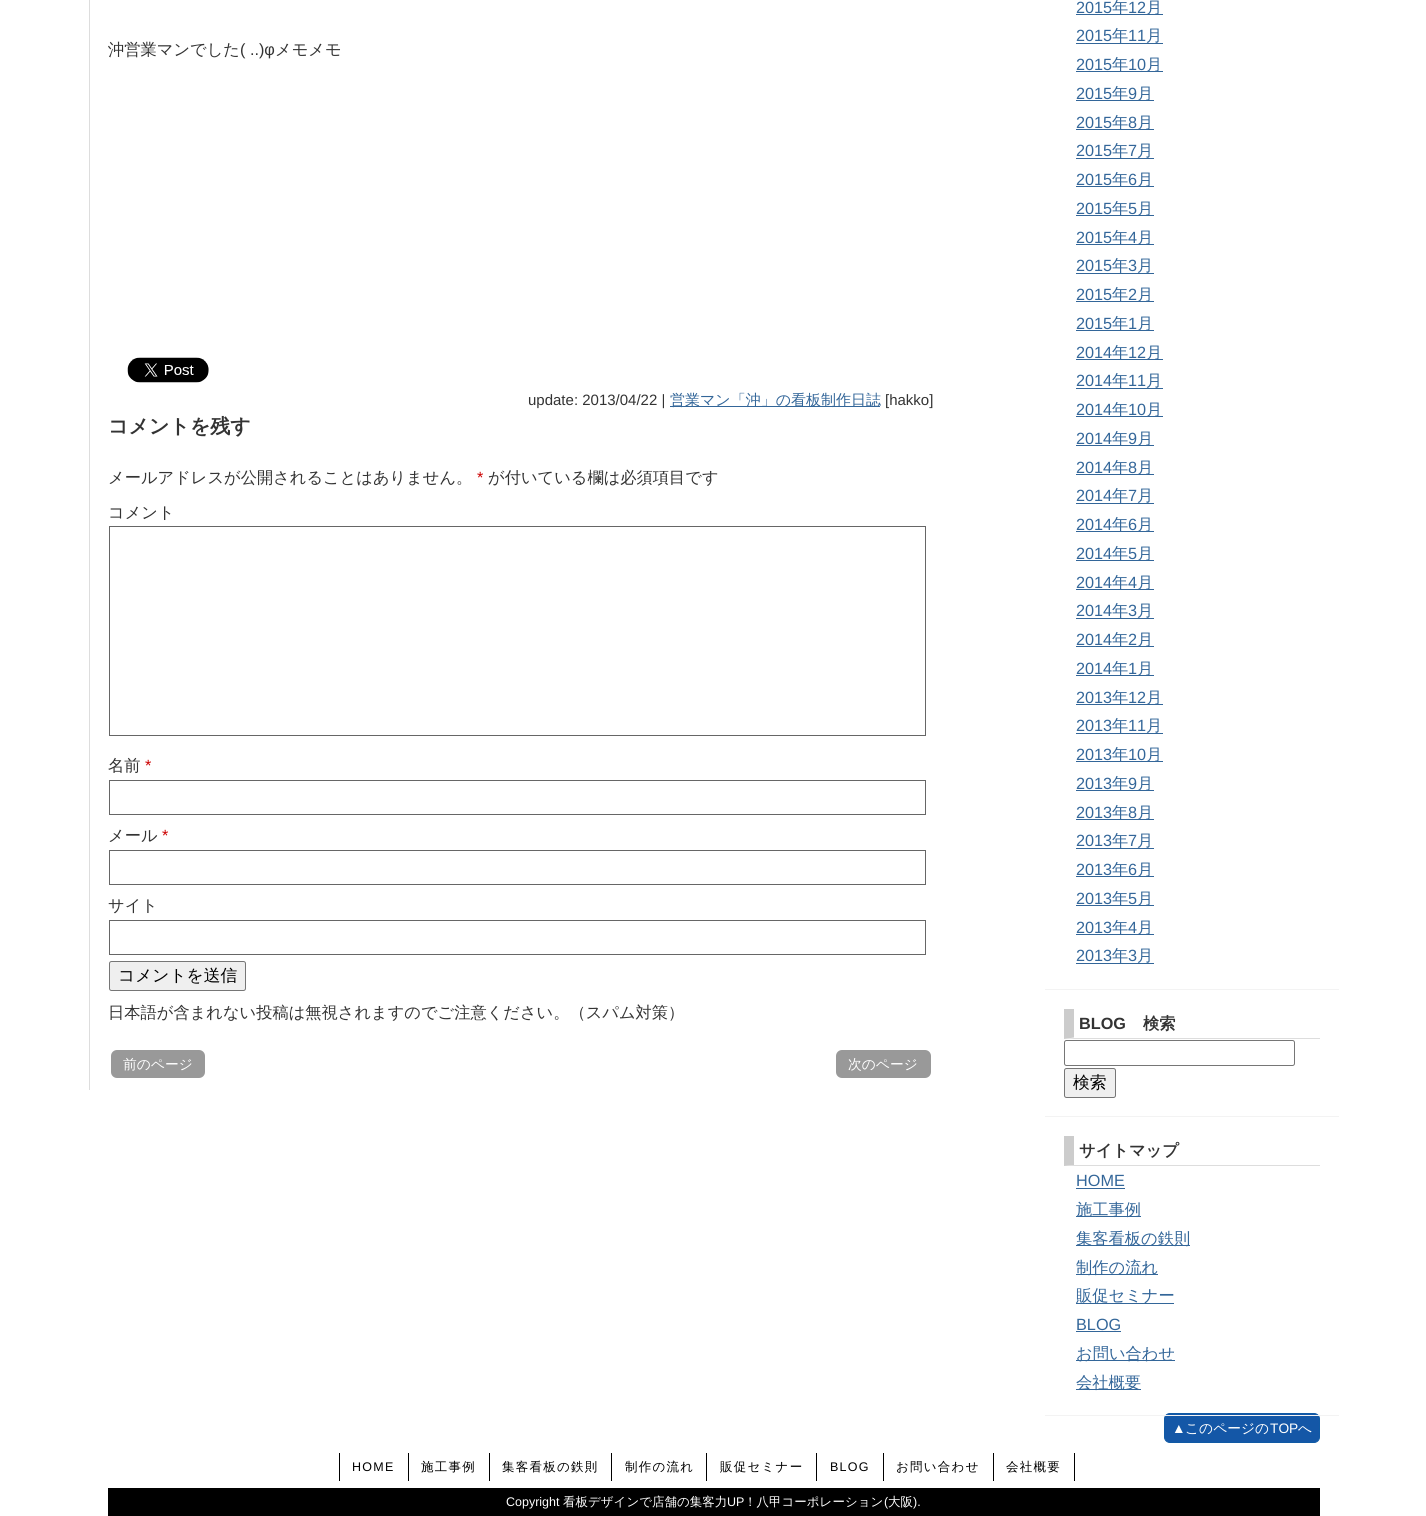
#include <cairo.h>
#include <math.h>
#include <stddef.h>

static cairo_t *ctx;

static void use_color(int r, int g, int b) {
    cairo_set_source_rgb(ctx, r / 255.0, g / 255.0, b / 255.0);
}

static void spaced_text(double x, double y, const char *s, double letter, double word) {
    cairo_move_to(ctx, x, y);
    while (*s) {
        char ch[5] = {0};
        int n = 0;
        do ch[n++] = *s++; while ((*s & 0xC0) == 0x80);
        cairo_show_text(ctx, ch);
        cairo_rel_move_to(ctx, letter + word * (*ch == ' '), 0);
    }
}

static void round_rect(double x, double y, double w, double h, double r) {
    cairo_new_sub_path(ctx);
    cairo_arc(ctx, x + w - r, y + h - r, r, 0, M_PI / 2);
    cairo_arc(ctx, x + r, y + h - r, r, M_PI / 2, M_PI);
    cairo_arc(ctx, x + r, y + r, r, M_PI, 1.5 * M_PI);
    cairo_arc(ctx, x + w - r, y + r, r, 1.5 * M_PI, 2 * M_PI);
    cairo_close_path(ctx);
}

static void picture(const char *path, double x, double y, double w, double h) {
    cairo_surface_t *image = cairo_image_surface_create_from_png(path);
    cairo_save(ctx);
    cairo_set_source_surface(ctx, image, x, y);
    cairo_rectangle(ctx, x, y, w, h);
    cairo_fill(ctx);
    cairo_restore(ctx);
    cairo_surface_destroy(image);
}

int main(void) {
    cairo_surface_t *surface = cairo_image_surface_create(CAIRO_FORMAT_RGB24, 1426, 1516);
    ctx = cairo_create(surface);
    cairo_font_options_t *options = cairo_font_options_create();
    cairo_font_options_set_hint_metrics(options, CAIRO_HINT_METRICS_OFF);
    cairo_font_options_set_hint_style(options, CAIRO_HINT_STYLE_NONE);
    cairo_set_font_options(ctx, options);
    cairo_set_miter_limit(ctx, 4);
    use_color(255, 255, 255);
    cairo_paint(ctx);
    use_color(221, 221, 221);
    cairo_rectangle(ctx, 89, 0, 1, 1090);
    cairo_fill(ctx);
    cairo_select_font_face(ctx, "WenQuanYi Zen Hei Medium", CAIRO_FONT_SLANT_NORMAL, CAIRO_FONT_WEIGHT_NORMAL);
    cairo_set_font_size(ctx, 16.25);
    use_color(51, 51, 51);
    cairo_move_to(ctx, 108, 55);
    cairo_show_text(ctx, "沖営業マンでした");
    cairo_select_font_face(ctx, "Liberation Sans", CAIRO_FONT_SLANT_NORMAL, CAIRO_FONT_WEIGHT_NORMAL);
    cairo_move_to(ctx, 240, 55);
    cairo_show_text(ctx, "( ..)φ");
    cairo_select_font_face(ctx, "WenQuanYi Zen Hei Medium", CAIRO_FONT_SLANT_NORMAL, CAIRO_FONT_WEIGHT_NORMAL);
    cairo_move_to(ctx, 275, 55);
    cairo_show_text(ctx, "メモメモ");
    picture("img1.png", 127, 357, 82, 26);
    cairo_select_font_face(ctx, "Liberation Sans", CAIRO_FONT_SLANT_NORMAL, CAIRO_FONT_WEIGHT_NORMAL);
    cairo_set_font_size(ctx, 15);
    cairo_move_to(ctx, 528, 405);
    cairo_show_text(ctx, "update: 2013/04/22 |");
    use_color(51, 102, 153);
    cairo_rectangle(ctx, 670, 406, 210, 1);
    cairo_fill(ctx);
    cairo_select_font_face(ctx, "WenQuanYi Zen Hei Medium", CAIRO_FONT_SLANT_NORMAL, CAIRO_FONT_WEIGHT_NORMAL);
    cairo_move_to(ctx, 670, 405);
    cairo_show_text(ctx, "営業マン「沖」の看板制作日誌");
    cairo_select_font_face(ctx, "Liberation Sans", CAIRO_FONT_SLANT_NORMAL, CAIRO_FONT_WEIGHT_NORMAL);
    use_color(51, 51, 51);
    cairo_move_to(ctx, 885, 405);
    cairo_show_text(ctx, "[hakko]");
    cairo_select_font_face(ctx, "WenQuanYi Zen Hei", CAIRO_FONT_SLANT_NORMAL, CAIRO_FONT_WEIGHT_BOLD);
    cairo_set_font_size(ctx, 20);
    cairo_move_to(ctx, 108, 433);
    cairo_show_text(ctx, "コメントを残す");
    cairo_select_font_face(ctx, "WenQuanYi Zen Hei Medium", CAIRO_FONT_SLANT_NORMAL, CAIRO_FONT_WEIGHT_NORMAL);
    cairo_set_font_size(ctx, 16.25);
    cairo_move_to(ctx, 108, 483);
    cairo_show_text(ctx, "メールアドレスが公開されることはありません。");
    cairo_select_font_face(ctx, "Liberation Sans", CAIRO_FONT_SLANT_NORMAL, CAIRO_FONT_WEIGHT_NORMAL);
    use_color(204, 0, 0);
    cairo_move_to(ctx, 477, 483);
    cairo_show_text(ctx, "*");
    cairo_select_font_face(ctx, "WenQuanYi Zen Hei Medium", CAIRO_FONT_SLANT_NORMAL, CAIRO_FONT_WEIGHT_NORMAL);
    use_color(51, 51, 51);
    cairo_move_to(ctx, 488, 483);
    cairo_show_text(ctx, "が付いている欄は必須項目です");
    cairo_move_to(ctx, 108, 518);
    cairo_show_text(ctx, "コメント");
    cairo_rectangle(ctx, 109.5, 526.5, 816, 209);
    use_color(102, 102, 102);
    cairo_set_line_width(ctx, 1);
    cairo_stroke(ctx);
    use_color(51, 51, 51);
    cairo_move_to(ctx, 108, 771);
    cairo_show_text(ctx, "名前");
    cairo_select_font_face(ctx, "Liberation Sans", CAIRO_FONT_SLANT_NORMAL, CAIRO_FONT_WEIGHT_NORMAL);
    use_color(204, 0, 0);
    cairo_move_to(ctx, 145, 771);
    cairo_show_text(ctx, "*");
    cairo_rectangle(ctx, 109.5, 780.5, 816, 34);
    use_color(102, 102, 102);
    cairo_stroke(ctx);
    cairo_select_font_face(ctx, "WenQuanYi Zen Hei Medium", CAIRO_FONT_SLANT_NORMAL, CAIRO_FONT_WEIGHT_NORMAL);
    use_color(51, 51, 51);
    cairo_move_to(ctx, 108, 841);
    cairo_show_text(ctx, "メール");
    cairo_select_font_face(ctx, "Liberation Sans", CAIRO_FONT_SLANT_NORMAL, CAIRO_FONT_WEIGHT_NORMAL);
    use_color(204, 0, 0);
    cairo_move_to(ctx, 162, 841);
    cairo_show_text(ctx, "*");
    cairo_rectangle(ctx, 109.5, 850.5, 816, 34);
    use_color(102, 102, 102);
    cairo_stroke(ctx);
    cairo_select_font_face(ctx, "WenQuanYi Zen Hei Medium", CAIRO_FONT_SLANT_NORMAL, CAIRO_FONT_WEIGHT_NORMAL);
    use_color(51, 51, 51);
    cairo_move_to(ctx, 108, 911);
    cairo_show_text(ctx, "サイト");
    cairo_rectangle(ctx, 109.5, 920.5, 816, 34);
    use_color(102, 102, 102);
    cairo_stroke(ctx);
    use_color(239, 239, 239);
    round_rect(109.5, 961.5, 136, 29, 2);
    cairo_fill_preserve(ctx);
    use_color(118, 118, 118);
    cairo_stroke(ctx);
    cairo_set_font_size(ctx, 16.75);
    use_color(0, 0, 0);
    cairo_move_to(ctx, 118, 981);
    cairo_show_text(ctx, "コメントを送信");
    cairo_set_font_size(ctx, 16.25);
    use_color(51, 51, 51);
    cairo_move_to(ctx, 108, 1018);
    cairo_show_text(ctx, "日本語が含まれない投稿は無視されますのでご注意ください。（スパム対策）");
    use_color(153, 153, 153);
    round_rect(111, 1050, 94, 28, 6);
    cairo_fill(ctx);
    cairo_set_font_size(ctx, 13.75);
    use_color(255, 255, 255);
    cairo_move_to(ctx, 123, 1069);
    cairo_show_text(ctx, "前のページ");
    use_color(153, 153, 153);
    round_rect(836, 1050, 95, 28, 6);
    cairo_fill(ctx);
    use_color(255, 255, 255);
    cairo_move_to(ctx, 848, 1069);
    cairo_show_text(ctx, "次のページ");
    use_color(243, 243, 243);
    cairo_rectangle(ctx, 1045, 989, 294, 1);
    cairo_fill(ctx);
    cairo_select_font_face(ctx, "Liberation Sans", CAIRO_FONT_SLANT_NORMAL, CAIRO_FONT_WEIGHT_NORMAL);
    cairo_set_font_size(ctx, 16.25);
    use_color(51, 102, 153);
    cairo_move_to(ctx, 1076, 13);
    cairo_show_text(ctx, "2015");
    cairo_rectangle(ctx, 1076, 14, 87, 1);
    cairo_fill(ctx);
    cairo_select_font_face(ctx, "WenQuanYi Zen Hei Medium", CAIRO_FONT_SLANT_NORMAL, CAIRO_FONT_WEIGHT_NORMAL);
    cairo_move_to(ctx, 1112, 13);
    cairo_show_text(ctx, "年");
    cairo_select_font_face(ctx, "Liberation Sans", CAIRO_FONT_SLANT_NORMAL, CAIRO_FONT_WEIGHT_NORMAL);
    cairo_move_to(ctx, 1128, 13);
    cairo_show_text(ctx, "12");
    cairo_select_font_face(ctx, "WenQuanYi Zen Hei Medium", CAIRO_FONT_SLANT_NORMAL, CAIRO_FONT_WEIGHT_NORMAL);
    cairo_move_to(ctx, 1146, 13);
    cairo_show_text(ctx, "月");
    cairo_select_font_face(ctx, "Liberation Sans", CAIRO_FONT_SLANT_NORMAL, CAIRO_FONT_WEIGHT_NORMAL);
    cairo_move_to(ctx, 1076, 41);
    cairo_show_text(ctx, "2015");
    cairo_select_font_face(ctx, "WenQuanYi Zen Hei Medium", CAIRO_FONT_SLANT_NORMAL, CAIRO_FONT_WEIGHT_NORMAL);
    cairo_move_to(ctx, 1112, 41);
    cairo_show_text(ctx, "年");
    cairo_select_font_face(ctx, "Liberation Sans", CAIRO_FONT_SLANT_NORMAL, CAIRO_FONT_WEIGHT_NORMAL);
    cairo_move_to(ctx, 1128, 41);
    cairo_show_text(ctx, "11");
    cairo_rectangle(ctx, 1076, 43, 87, 1);
    cairo_fill(ctx);
    cairo_select_font_face(ctx, "WenQuanYi Zen Hei Medium", CAIRO_FONT_SLANT_NORMAL, CAIRO_FONT_WEIGHT_NORMAL);
    cairo_move_to(ctx, 1146, 41);
    cairo_show_text(ctx, "月");
    cairo_select_font_face(ctx, "Liberation Sans", CAIRO_FONT_SLANT_NORMAL, CAIRO_FONT_WEIGHT_NORMAL);
    cairo_move_to(ctx, 1076, 70);
    cairo_show_text(ctx, "2015");
    cairo_rectangle(ctx, 1076, 71, 87, 1);
    cairo_fill(ctx);
    cairo_select_font_face(ctx, "WenQuanYi Zen Hei Medium", CAIRO_FONT_SLANT_NORMAL, CAIRO_FONT_WEIGHT_NORMAL);
    cairo_move_to(ctx, 1112, 70);
    cairo_show_text(ctx, "年");
    cairo_select_font_face(ctx, "Liberation Sans", CAIRO_FONT_SLANT_NORMAL, CAIRO_FONT_WEIGHT_NORMAL);
    cairo_move_to(ctx, 1128, 70);
    cairo_show_text(ctx, "10");
    cairo_select_font_face(ctx, "WenQuanYi Zen Hei Medium", CAIRO_FONT_SLANT_NORMAL, CAIRO_FONT_WEIGHT_NORMAL);
    cairo_move_to(ctx, 1146, 70);
    cairo_show_text(ctx, "月");
    cairo_select_font_face(ctx, "Liberation Sans", CAIRO_FONT_SLANT_NORMAL, CAIRO_FONT_WEIGHT_NORMAL);
    cairo_move_to(ctx, 1076, 99);
    cairo_show_text(ctx, "2015");
    cairo_rectangle(ctx, 1076, 100, 78, 1);
    cairo_fill(ctx);
    cairo_select_font_face(ctx, "WenQuanYi Zen Hei Medium", CAIRO_FONT_SLANT_NORMAL, CAIRO_FONT_WEIGHT_NORMAL);
    cairo_move_to(ctx, 1112, 99);
    cairo_show_text(ctx, "年");
    cairo_select_font_face(ctx, "Liberation Sans", CAIRO_FONT_SLANT_NORMAL, CAIRO_FONT_WEIGHT_NORMAL);
    cairo_move_to(ctx, 1128, 99);
    cairo_show_text(ctx, "9");
    cairo_select_font_face(ctx, "WenQuanYi Zen Hei Medium", CAIRO_FONT_SLANT_NORMAL, CAIRO_FONT_WEIGHT_NORMAL);
    cairo_move_to(ctx, 1137, 99);
    cairo_show_text(ctx, "月");
    cairo_select_font_face(ctx, "Liberation Sans", CAIRO_FONT_SLANT_NORMAL, CAIRO_FONT_WEIGHT_NORMAL);
    cairo_move_to(ctx, 1076, 128);
    cairo_show_text(ctx, "2015");
    cairo_rectangle(ctx, 1076, 129, 78, 1);
    cairo_fill(ctx);
    cairo_select_font_face(ctx, "WenQuanYi Zen Hei Medium", CAIRO_FONT_SLANT_NORMAL, CAIRO_FONT_WEIGHT_NORMAL);
    cairo_move_to(ctx, 1112, 128);
    cairo_show_text(ctx, "年");
    cairo_select_font_face(ctx, "Liberation Sans", CAIRO_FONT_SLANT_NORMAL, CAIRO_FONT_WEIGHT_NORMAL);
    cairo_move_to(ctx, 1128, 128);
    cairo_show_text(ctx, "8");
    cairo_select_font_face(ctx, "WenQuanYi Zen Hei Medium", CAIRO_FONT_SLANT_NORMAL, CAIRO_FONT_WEIGHT_NORMAL);
    cairo_move_to(ctx, 1137, 128);
    cairo_show_text(ctx, "月");
    cairo_select_font_face(ctx, "Liberation Sans", CAIRO_FONT_SLANT_NORMAL, CAIRO_FONT_WEIGHT_NORMAL);
    cairo_move_to(ctx, 1076, 156);
    cairo_show_text(ctx, "2015");
    cairo_select_font_face(ctx, "WenQuanYi Zen Hei Medium", CAIRO_FONT_SLANT_NORMAL, CAIRO_FONT_WEIGHT_NORMAL);
    cairo_move_to(ctx, 1112, 156);
    cairo_show_text(ctx, "年");
    cairo_select_font_face(ctx, "Liberation Sans", CAIRO_FONT_SLANT_NORMAL, CAIRO_FONT_WEIGHT_NORMAL);
    cairo_move_to(ctx, 1128, 156);
    cairo_show_text(ctx, "7");
    cairo_rectangle(ctx, 1076, 158, 78, 1);
    cairo_fill(ctx);
    cairo_select_font_face(ctx, "WenQuanYi Zen Hei Medium", CAIRO_FONT_SLANT_NORMAL, CAIRO_FONT_WEIGHT_NORMAL);
    cairo_move_to(ctx, 1137, 156);
    cairo_show_text(ctx, "月");
    cairo_select_font_face(ctx, "Liberation Sans", CAIRO_FONT_SLANT_NORMAL, CAIRO_FONT_WEIGHT_NORMAL);
    cairo_move_to(ctx, 1076, 185);
    cairo_show_text(ctx, "2015");
    cairo_rectangle(ctx, 1076, 186, 78, 1);
    cairo_fill(ctx);
    cairo_select_font_face(ctx, "WenQuanYi Zen Hei Medium", CAIRO_FONT_SLANT_NORMAL, CAIRO_FONT_WEIGHT_NORMAL);
    cairo_move_to(ctx, 1112, 185);
    cairo_show_text(ctx, "年");
    cairo_select_font_face(ctx, "Liberation Sans", CAIRO_FONT_SLANT_NORMAL, CAIRO_FONT_WEIGHT_NORMAL);
    cairo_move_to(ctx, 1128, 185);
    cairo_show_text(ctx, "6");
    cairo_select_font_face(ctx, "WenQuanYi Zen Hei Medium", CAIRO_FONT_SLANT_NORMAL, CAIRO_FONT_WEIGHT_NORMAL);
    cairo_move_to(ctx, 1137, 185);
    cairo_show_text(ctx, "月");
    cairo_select_font_face(ctx, "Liberation Sans", CAIRO_FONT_SLANT_NORMAL, CAIRO_FONT_WEIGHT_NORMAL);
    cairo_move_to(ctx, 1076, 214);
    cairo_show_text(ctx, "2015");
    cairo_rectangle(ctx, 1076, 215, 78, 1);
    cairo_fill(ctx);
    cairo_select_font_face(ctx, "WenQuanYi Zen Hei Medium", CAIRO_FONT_SLANT_NORMAL, CAIRO_FONT_WEIGHT_NORMAL);
    cairo_move_to(ctx, 1112, 214);
    cairo_show_text(ctx, "年");
    cairo_select_font_face(ctx, "Liberation Sans", CAIRO_FONT_SLANT_NORMAL, CAIRO_FONT_WEIGHT_NORMAL);
    cairo_move_to(ctx, 1128, 214);
    cairo_show_text(ctx, "5");
    cairo_select_font_face(ctx, "WenQuanYi Zen Hei Medium", CAIRO_FONT_SLANT_NORMAL, CAIRO_FONT_WEIGHT_NORMAL);
    cairo_move_to(ctx, 1137, 214);
    cairo_show_text(ctx, "月");
    cairo_select_font_face(ctx, "Liberation Sans", CAIRO_FONT_SLANT_NORMAL, CAIRO_FONT_WEIGHT_NORMAL);
    cairo_move_to(ctx, 1076, 243);
    cairo_show_text(ctx, "2015");
    cairo_rectangle(ctx, 1076, 244, 78, 1);
    cairo_fill(ctx);
    cairo_select_font_face(ctx, "WenQuanYi Zen Hei Medium", CAIRO_FONT_SLANT_NORMAL, CAIRO_FONT_WEIGHT_NORMAL);
    cairo_move_to(ctx, 1112, 243);
    cairo_show_text(ctx, "年");
    cairo_select_font_face(ctx, "Liberation Sans", CAIRO_FONT_SLANT_NORMAL, CAIRO_FONT_WEIGHT_NORMAL);
    cairo_move_to(ctx, 1128, 243);
    cairo_show_text(ctx, "4");
    cairo_select_font_face(ctx, "WenQuanYi Zen Hei Medium", CAIRO_FONT_SLANT_NORMAL, CAIRO_FONT_WEIGHT_NORMAL);
    cairo_move_to(ctx, 1137, 243);
    cairo_show_text(ctx, "月");
    cairo_select_font_face(ctx, "Liberation Sans", CAIRO_FONT_SLANT_NORMAL, CAIRO_FONT_WEIGHT_NORMAL);
    cairo_move_to(ctx, 1076, 271);
    cairo_show_text(ctx, "2015");
    cairo_select_font_face(ctx, "WenQuanYi Zen Hei Medium", CAIRO_FONT_SLANT_NORMAL, CAIRO_FONT_WEIGHT_NORMAL);
    cairo_move_to(ctx, 1112, 271);
    cairo_show_text(ctx, "年");
    cairo_select_font_face(ctx, "Liberation Sans", CAIRO_FONT_SLANT_NORMAL, CAIRO_FONT_WEIGHT_NORMAL);
    cairo_move_to(ctx, 1128, 271);
    cairo_show_text(ctx, "3");
    cairo_rectangle(ctx, 1076, 273, 78, 1);
    cairo_fill(ctx);
    cairo_select_font_face(ctx, "WenQuanYi Zen Hei Medium", CAIRO_FONT_SLANT_NORMAL, CAIRO_FONT_WEIGHT_NORMAL);
    cairo_move_to(ctx, 1137, 271);
    cairo_show_text(ctx, "月");
    cairo_select_font_face(ctx, "Liberation Sans", CAIRO_FONT_SLANT_NORMAL, CAIRO_FONT_WEIGHT_NORMAL);
    cairo_move_to(ctx, 1076, 300);
    cairo_show_text(ctx, "2015");
    cairo_rectangle(ctx, 1076, 301, 78, 1);
    cairo_fill(ctx);
    cairo_select_font_face(ctx, "WenQuanYi Zen Hei Medium", CAIRO_FONT_SLANT_NORMAL, CAIRO_FONT_WEIGHT_NORMAL);
    cairo_move_to(ctx, 1112, 300);
    cairo_show_text(ctx, "年");
    cairo_select_font_face(ctx, "Liberation Sans", CAIRO_FONT_SLANT_NORMAL, CAIRO_FONT_WEIGHT_NORMAL);
    cairo_move_to(ctx, 1128, 300);
    cairo_show_text(ctx, "2");
    cairo_select_font_face(ctx, "WenQuanYi Zen Hei Medium", CAIRO_FONT_SLANT_NORMAL, CAIRO_FONT_WEIGHT_NORMAL);
    cairo_move_to(ctx, 1137, 300);
    cairo_show_text(ctx, "月");
    cairo_select_font_face(ctx, "Liberation Sans", CAIRO_FONT_SLANT_NORMAL, CAIRO_FONT_WEIGHT_NORMAL);
    cairo_move_to(ctx, 1076, 329);
    cairo_show_text(ctx, "2015");
    cairo_rectangle(ctx, 1076, 330, 78, 1);
    cairo_fill(ctx);
    cairo_select_font_face(ctx, "WenQuanYi Zen Hei Medium", CAIRO_FONT_SLANT_NORMAL, CAIRO_FONT_WEIGHT_NORMAL);
    cairo_move_to(ctx, 1112, 329);
    cairo_show_text(ctx, "年");
    cairo_select_font_face(ctx, "Liberation Sans", CAIRO_FONT_SLANT_NORMAL, CAIRO_FONT_WEIGHT_NORMAL);
    cairo_move_to(ctx, 1128, 329);
    cairo_show_text(ctx, "1");
    cairo_select_font_face(ctx, "WenQuanYi Zen Hei Medium", CAIRO_FONT_SLANT_NORMAL, CAIRO_FONT_WEIGHT_NORMAL);
    cairo_move_to(ctx, 1137, 329);
    cairo_show_text(ctx, "月");
    cairo_select_font_face(ctx, "Liberation Sans", CAIRO_FONT_SLANT_NORMAL, CAIRO_FONT_WEIGHT_NORMAL);
    cairo_move_to(ctx, 1076, 358);
    cairo_show_text(ctx, "2014");
    cairo_rectangle(ctx, 1076, 359, 87, 1);
    cairo_fill(ctx);
    cairo_select_font_face(ctx, "WenQuanYi Zen Hei Medium", CAIRO_FONT_SLANT_NORMAL, CAIRO_FONT_WEIGHT_NORMAL);
    cairo_move_to(ctx, 1112, 358);
    cairo_show_text(ctx, "年");
    cairo_select_font_face(ctx, "Liberation Sans", CAIRO_FONT_SLANT_NORMAL, CAIRO_FONT_WEIGHT_NORMAL);
    cairo_move_to(ctx, 1128, 358);
    cairo_show_text(ctx, "12");
    cairo_select_font_face(ctx, "WenQuanYi Zen Hei Medium", CAIRO_FONT_SLANT_NORMAL, CAIRO_FONT_WEIGHT_NORMAL);
    cairo_move_to(ctx, 1146, 358);
    cairo_show_text(ctx, "月");
    cairo_select_font_face(ctx, "Liberation Sans", CAIRO_FONT_SLANT_NORMAL, CAIRO_FONT_WEIGHT_NORMAL);
    cairo_move_to(ctx, 1076, 386);
    cairo_show_text(ctx, "2014");
    cairo_select_font_face(ctx, "WenQuanYi Zen Hei Medium", CAIRO_FONT_SLANT_NORMAL, CAIRO_FONT_WEIGHT_NORMAL);
    cairo_move_to(ctx, 1112, 386);
    cairo_show_text(ctx, "年");
    cairo_select_font_face(ctx, "Liberation Sans", CAIRO_FONT_SLANT_NORMAL, CAIRO_FONT_WEIGHT_NORMAL);
    cairo_move_to(ctx, 1128, 386);
    cairo_show_text(ctx, "11");
    cairo_rectangle(ctx, 1076, 388, 87, 1);
    cairo_fill(ctx);
    cairo_select_font_face(ctx, "WenQuanYi Zen Hei Medium", CAIRO_FONT_SLANT_NORMAL, CAIRO_FONT_WEIGHT_NORMAL);
    cairo_move_to(ctx, 1146, 386);
    cairo_show_text(ctx, "月");
    cairo_select_font_face(ctx, "Liberation Sans", CAIRO_FONT_SLANT_NORMAL, CAIRO_FONT_WEIGHT_NORMAL);
    cairo_move_to(ctx, 1076, 415);
    cairo_show_text(ctx, "2014");
    cairo_rectangle(ctx, 1076, 416, 87, 1);
    cairo_fill(ctx);
    cairo_select_font_face(ctx, "WenQuanYi Zen Hei Medium", CAIRO_FONT_SLANT_NORMAL, CAIRO_FONT_WEIGHT_NORMAL);
    cairo_move_to(ctx, 1112, 415);
    cairo_show_text(ctx, "年");
    cairo_select_font_face(ctx, "Liberation Sans", CAIRO_FONT_SLANT_NORMAL, CAIRO_FONT_WEIGHT_NORMAL);
    cairo_move_to(ctx, 1128, 415);
    cairo_show_text(ctx, "10");
    cairo_select_font_face(ctx, "WenQuanYi Zen Hei Medium", CAIRO_FONT_SLANT_NORMAL, CAIRO_FONT_WEIGHT_NORMAL);
    cairo_move_to(ctx, 1146, 415);
    cairo_show_text(ctx, "月");
    cairo_select_font_face(ctx, "Liberation Sans", CAIRO_FONT_SLANT_NORMAL, CAIRO_FONT_WEIGHT_NORMAL);
    cairo_move_to(ctx, 1076, 444);
    cairo_show_text(ctx, "2014");
    cairo_rectangle(ctx, 1076, 445, 78, 1);
    cairo_fill(ctx);
    cairo_select_font_face(ctx, "WenQuanYi Zen Hei Medium", CAIRO_FONT_SLANT_NORMAL, CAIRO_FONT_WEIGHT_NORMAL);
    cairo_move_to(ctx, 1112, 444);
    cairo_show_text(ctx, "年");
    cairo_select_font_face(ctx, "Liberation Sans", CAIRO_FONT_SLANT_NORMAL, CAIRO_FONT_WEIGHT_NORMAL);
    cairo_move_to(ctx, 1128, 444);
    cairo_show_text(ctx, "9");
    cairo_select_font_face(ctx, "WenQuanYi Zen Hei Medium", CAIRO_FONT_SLANT_NORMAL, CAIRO_FONT_WEIGHT_NORMAL);
    cairo_move_to(ctx, 1137, 444);
    cairo_show_text(ctx, "月");
    cairo_select_font_face(ctx, "Liberation Sans", CAIRO_FONT_SLANT_NORMAL, CAIRO_FONT_WEIGHT_NORMAL);
    cairo_move_to(ctx, 1076, 473);
    cairo_show_text(ctx, "2014");
    cairo_rectangle(ctx, 1076, 474, 78, 1);
    cairo_fill(ctx);
    cairo_select_font_face(ctx, "WenQuanYi Zen Hei Medium", CAIRO_FONT_SLANT_NORMAL, CAIRO_FONT_WEIGHT_NORMAL);
    cairo_move_to(ctx, 1112, 473);
    cairo_show_text(ctx, "年");
    cairo_select_font_face(ctx, "Liberation Sans", CAIRO_FONT_SLANT_NORMAL, CAIRO_FONT_WEIGHT_NORMAL);
    cairo_move_to(ctx, 1128, 473);
    cairo_show_text(ctx, "8");
    cairo_select_font_face(ctx, "WenQuanYi Zen Hei Medium", CAIRO_FONT_SLANT_NORMAL, CAIRO_FONT_WEIGHT_NORMAL);
    cairo_move_to(ctx, 1137, 473);
    cairo_show_text(ctx, "月");
    cairo_select_font_face(ctx, "Liberation Sans", CAIRO_FONT_SLANT_NORMAL, CAIRO_FONT_WEIGHT_NORMAL);
    cairo_move_to(ctx, 1076, 501);
    cairo_show_text(ctx, "2014");
    cairo_select_font_face(ctx, "WenQuanYi Zen Hei Medium", CAIRO_FONT_SLANT_NORMAL, CAIRO_FONT_WEIGHT_NORMAL);
    cairo_move_to(ctx, 1112, 501);
    cairo_show_text(ctx, "年");
    cairo_select_font_face(ctx, "Liberation Sans", CAIRO_FONT_SLANT_NORMAL, CAIRO_FONT_WEIGHT_NORMAL);
    cairo_move_to(ctx, 1128, 501);
    cairo_show_text(ctx, "7");
    cairo_rectangle(ctx, 1076, 503, 78, 1);
    cairo_fill(ctx);
    cairo_select_font_face(ctx, "WenQuanYi Zen Hei Medium", CAIRO_FONT_SLANT_NORMAL, CAIRO_FONT_WEIGHT_NORMAL);
    cairo_move_to(ctx, 1137, 501);
    cairo_show_text(ctx, "月");
    cairo_select_font_face(ctx, "Liberation Sans", CAIRO_FONT_SLANT_NORMAL, CAIRO_FONT_WEIGHT_NORMAL);
    cairo_move_to(ctx, 1076, 530);
    cairo_show_text(ctx, "2014");
    cairo_rectangle(ctx, 1076, 531, 78, 1);
    cairo_fill(ctx);
    cairo_select_font_face(ctx, "WenQuanYi Zen Hei Medium", CAIRO_FONT_SLANT_NORMAL, CAIRO_FONT_WEIGHT_NORMAL);
    cairo_move_to(ctx, 1112, 530);
    cairo_show_text(ctx, "年");
    cairo_select_font_face(ctx, "Liberation Sans", CAIRO_FONT_SLANT_NORMAL, CAIRO_FONT_WEIGHT_NORMAL);
    cairo_move_to(ctx, 1128, 530);
    cairo_show_text(ctx, "6");
    cairo_select_font_face(ctx, "WenQuanYi Zen Hei Medium", CAIRO_FONT_SLANT_NORMAL, CAIRO_FONT_WEIGHT_NORMAL);
    cairo_move_to(ctx, 1137, 530);
    cairo_show_text(ctx, "月");
    cairo_select_font_face(ctx, "Liberation Sans", CAIRO_FONT_SLANT_NORMAL, CAIRO_FONT_WEIGHT_NORMAL);
    cairo_move_to(ctx, 1076, 559);
    cairo_show_text(ctx, "2014");
    cairo_rectangle(ctx, 1076, 560, 78, 1);
    cairo_fill(ctx);
    cairo_select_font_face(ctx, "WenQuanYi Zen Hei Medium", CAIRO_FONT_SLANT_NORMAL, CAIRO_FONT_WEIGHT_NORMAL);
    cairo_move_to(ctx, 1112, 559);
    cairo_show_text(ctx, "年");
    cairo_select_font_face(ctx, "Liberation Sans", CAIRO_FONT_SLANT_NORMAL, CAIRO_FONT_WEIGHT_NORMAL);
    cairo_move_to(ctx, 1128, 559);
    cairo_show_text(ctx, "5");
    cairo_select_font_face(ctx, "WenQuanYi Zen Hei Medium", CAIRO_FONT_SLANT_NORMAL, CAIRO_FONT_WEIGHT_NORMAL);
    cairo_move_to(ctx, 1137, 559);
    cairo_show_text(ctx, "月");
    cairo_select_font_face(ctx, "Liberation Sans", CAIRO_FONT_SLANT_NORMAL, CAIRO_FONT_WEIGHT_NORMAL);
    cairo_move_to(ctx, 1076, 588);
    cairo_show_text(ctx, "2014");
    cairo_rectangle(ctx, 1076, 589, 78, 1);
    cairo_fill(ctx);
    cairo_select_font_face(ctx, "WenQuanYi Zen Hei Medium", CAIRO_FONT_SLANT_NORMAL, CAIRO_FONT_WEIGHT_NORMAL);
    cairo_move_to(ctx, 1112, 588);
    cairo_show_text(ctx, "年");
    cairo_select_font_face(ctx, "Liberation Sans", CAIRO_FONT_SLANT_NORMAL, CAIRO_FONT_WEIGHT_NORMAL);
    cairo_move_to(ctx, 1128, 588);
    cairo_show_text(ctx, "4");
    cairo_select_font_face(ctx, "WenQuanYi Zen Hei Medium", CAIRO_FONT_SLANT_NORMAL, CAIRO_FONT_WEIGHT_NORMAL);
    cairo_move_to(ctx, 1137, 588);
    cairo_show_text(ctx, "月");
    cairo_select_font_face(ctx, "Liberation Sans", CAIRO_FONT_SLANT_NORMAL, CAIRO_FONT_WEIGHT_NORMAL);
    cairo_move_to(ctx, 1076, 616);
    cairo_show_text(ctx, "2014");
    cairo_select_font_face(ctx, "WenQuanYi Zen Hei Medium", CAIRO_FONT_SLANT_NORMAL, CAIRO_FONT_WEIGHT_NORMAL);
    cairo_move_to(ctx, 1112, 616);
    cairo_show_text(ctx, "年");
    cairo_select_font_face(ctx, "Liberation Sans", CAIRO_FONT_SLANT_NORMAL, CAIRO_FONT_WEIGHT_NORMAL);
    cairo_move_to(ctx, 1128, 616);
    cairo_show_text(ctx, "3");
    cairo_rectangle(ctx, 1076, 618, 78, 1);
    cairo_fill(ctx);
    cairo_select_font_face(ctx, "WenQuanYi Zen Hei Medium", CAIRO_FONT_SLANT_NORMAL, CAIRO_FONT_WEIGHT_NORMAL);
    cairo_move_to(ctx, 1137, 616);
    cairo_show_text(ctx, "月");
    cairo_select_font_face(ctx, "Liberation Sans", CAIRO_FONT_SLANT_NORMAL, CAIRO_FONT_WEIGHT_NORMAL);
    cairo_move_to(ctx, 1076, 645);
    cairo_show_text(ctx, "2014");
    cairo_rectangle(ctx, 1076, 646, 78, 1);
    cairo_fill(ctx);
    cairo_select_font_face(ctx, "WenQuanYi Zen Hei Medium", CAIRO_FONT_SLANT_NORMAL, CAIRO_FONT_WEIGHT_NORMAL);
    cairo_move_to(ctx, 1112, 645);
    cairo_show_text(ctx, "年");
    cairo_select_font_face(ctx, "Liberation Sans", CAIRO_FONT_SLANT_NORMAL, CAIRO_FONT_WEIGHT_NORMAL);
    cairo_move_to(ctx, 1128, 645);
    cairo_show_text(ctx, "2");
    cairo_select_font_face(ctx, "WenQuanYi Zen Hei Medium", CAIRO_FONT_SLANT_NORMAL, CAIRO_FONT_WEIGHT_NORMAL);
    cairo_move_to(ctx, 1137, 645);
    cairo_show_text(ctx, "月");
    cairo_select_font_face(ctx, "Liberation Sans", CAIRO_FONT_SLANT_NORMAL, CAIRO_FONT_WEIGHT_NORMAL);
    cairo_move_to(ctx, 1076, 674);
    cairo_show_text(ctx, "2014");
    cairo_rectangle(ctx, 1076, 675, 78, 1);
    cairo_fill(ctx);
    cairo_select_font_face(ctx, "WenQuanYi Zen Hei Medium", CAIRO_FONT_SLANT_NORMAL, CAIRO_FONT_WEIGHT_NORMAL);
    cairo_move_to(ctx, 1112, 674);
    cairo_show_text(ctx, "年");
    cairo_select_font_face(ctx, "Liberation Sans", CAIRO_FONT_SLANT_NORMAL, CAIRO_FONT_WEIGHT_NORMAL);
    cairo_move_to(ctx, 1128, 674);
    cairo_show_text(ctx, "1");
    cairo_select_font_face(ctx, "WenQuanYi Zen Hei Medium", CAIRO_FONT_SLANT_NORMAL, CAIRO_FONT_WEIGHT_NORMAL);
    cairo_move_to(ctx, 1137, 674);
    cairo_show_text(ctx, "月");
    cairo_select_font_face(ctx, "Liberation Sans", CAIRO_FONT_SLANT_NORMAL, CAIRO_FONT_WEIGHT_NORMAL);
    cairo_move_to(ctx, 1076, 703);
    cairo_show_text(ctx, "2013");
    cairo_rectangle(ctx, 1076, 704, 87, 1);
    cairo_fill(ctx);
    cairo_select_font_face(ctx, "WenQuanYi Zen Hei Medium", CAIRO_FONT_SLANT_NORMAL, CAIRO_FONT_WEIGHT_NORMAL);
    cairo_move_to(ctx, 1112, 703);
    cairo_show_text(ctx, "年");
    cairo_select_font_face(ctx, "Liberation Sans", CAIRO_FONT_SLANT_NORMAL, CAIRO_FONT_WEIGHT_NORMAL);
    cairo_move_to(ctx, 1128, 703);
    cairo_show_text(ctx, "12");
    cairo_select_font_face(ctx, "WenQuanYi Zen Hei Medium", CAIRO_FONT_SLANT_NORMAL, CAIRO_FONT_WEIGHT_NORMAL);
    cairo_move_to(ctx, 1146, 703);
    cairo_show_text(ctx, "月");
    cairo_select_font_face(ctx, "Liberation Sans", CAIRO_FONT_SLANT_NORMAL, CAIRO_FONT_WEIGHT_NORMAL);
    cairo_move_to(ctx, 1076, 731);
    cairo_show_text(ctx, "2013");
    cairo_select_font_face(ctx, "WenQuanYi Zen Hei Medium", CAIRO_FONT_SLANT_NORMAL, CAIRO_FONT_WEIGHT_NORMAL);
    cairo_move_to(ctx, 1112, 731);
    cairo_show_text(ctx, "年");
    cairo_select_font_face(ctx, "Liberation Sans", CAIRO_FONT_SLANT_NORMAL, CAIRO_FONT_WEIGHT_NORMAL);
    cairo_move_to(ctx, 1128, 731);
    cairo_show_text(ctx, "11");
    cairo_rectangle(ctx, 1076, 733, 87, 1);
    cairo_fill(ctx);
    cairo_select_font_face(ctx, "WenQuanYi Zen Hei Medium", CAIRO_FONT_SLANT_NORMAL, CAIRO_FONT_WEIGHT_NORMAL);
    cairo_move_to(ctx, 1146, 731);
    cairo_show_text(ctx, "月");
    cairo_select_font_face(ctx, "Liberation Sans", CAIRO_FONT_SLANT_NORMAL, CAIRO_FONT_WEIGHT_NORMAL);
    cairo_move_to(ctx, 1076, 760);
    cairo_show_text(ctx, "2013");
    cairo_rectangle(ctx, 1076, 761, 87, 1);
    cairo_fill(ctx);
    cairo_select_font_face(ctx, "WenQuanYi Zen Hei Medium", CAIRO_FONT_SLANT_NORMAL, CAIRO_FONT_WEIGHT_NORMAL);
    cairo_move_to(ctx, 1112, 760);
    cairo_show_text(ctx, "年");
    cairo_select_font_face(ctx, "Liberation Sans", CAIRO_FONT_SLANT_NORMAL, CAIRO_FONT_WEIGHT_NORMAL);
    cairo_move_to(ctx, 1128, 760);
    cairo_show_text(ctx, "10");
    cairo_select_font_face(ctx, "WenQuanYi Zen Hei Medium", CAIRO_FONT_SLANT_NORMAL, CAIRO_FONT_WEIGHT_NORMAL);
    cairo_move_to(ctx, 1146, 760);
    cairo_show_text(ctx, "月");
    cairo_select_font_face(ctx, "Liberation Sans", CAIRO_FONT_SLANT_NORMAL, CAIRO_FONT_WEIGHT_NORMAL);
    cairo_move_to(ctx, 1076, 789);
    cairo_show_text(ctx, "2013");
    cairo_rectangle(ctx, 1076, 790, 78, 1);
    cairo_fill(ctx);
    cairo_select_font_face(ctx, "WenQuanYi Zen Hei Medium", CAIRO_FONT_SLANT_NORMAL, CAIRO_FONT_WEIGHT_NORMAL);
    cairo_move_to(ctx, 1112, 789);
    cairo_show_text(ctx, "年");
    cairo_select_font_face(ctx, "Liberation Sans", CAIRO_FONT_SLANT_NORMAL, CAIRO_FONT_WEIGHT_NORMAL);
    cairo_move_to(ctx, 1128, 789);
    cairo_show_text(ctx, "9");
    cairo_select_font_face(ctx, "WenQuanYi Zen Hei Medium", CAIRO_FONT_SLANT_NORMAL, CAIRO_FONT_WEIGHT_NORMAL);
    cairo_move_to(ctx, 1137, 789);
    cairo_show_text(ctx, "月");
    cairo_select_font_face(ctx, "Liberation Sans", CAIRO_FONT_SLANT_NORMAL, CAIRO_FONT_WEIGHT_NORMAL);
    cairo_move_to(ctx, 1076, 818);
    cairo_show_text(ctx, "2013");
    cairo_rectangle(ctx, 1076, 819, 78, 1);
    cairo_fill(ctx);
    cairo_select_font_face(ctx, "WenQuanYi Zen Hei Medium", CAIRO_FONT_SLANT_NORMAL, CAIRO_FONT_WEIGHT_NORMAL);
    cairo_move_to(ctx, 1112, 818);
    cairo_show_text(ctx, "年");
    cairo_select_font_face(ctx, "Liberation Sans", CAIRO_FONT_SLANT_NORMAL, CAIRO_FONT_WEIGHT_NORMAL);
    cairo_move_to(ctx, 1128, 818);
    cairo_show_text(ctx, "8");
    cairo_select_font_face(ctx, "WenQuanYi Zen Hei Medium", CAIRO_FONT_SLANT_NORMAL, CAIRO_FONT_WEIGHT_NORMAL);
    cairo_move_to(ctx, 1137, 818);
    cairo_show_text(ctx, "月");
    cairo_select_font_face(ctx, "Liberation Sans", CAIRO_FONT_SLANT_NORMAL, CAIRO_FONT_WEIGHT_NORMAL);
    cairo_move_to(ctx, 1076, 846);
    cairo_show_text(ctx, "2013");
    cairo_select_font_face(ctx, "WenQuanYi Zen Hei Medium", CAIRO_FONT_SLANT_NORMAL, CAIRO_FONT_WEIGHT_NORMAL);
    cairo_move_to(ctx, 1112, 846);
    cairo_show_text(ctx, "年");
    cairo_select_font_face(ctx, "Liberation Sans", CAIRO_FONT_SLANT_NORMAL, CAIRO_FONT_WEIGHT_NORMAL);
    cairo_move_to(ctx, 1128, 846);
    cairo_show_text(ctx, "7");
    cairo_rectangle(ctx, 1076, 848, 78, 1);
    cairo_fill(ctx);
    cairo_select_font_face(ctx, "WenQuanYi Zen Hei Medium", CAIRO_FONT_SLANT_NORMAL, CAIRO_FONT_WEIGHT_NORMAL);
    cairo_move_to(ctx, 1137, 846);
    cairo_show_text(ctx, "月");
    cairo_select_font_face(ctx, "Liberation Sans", CAIRO_FONT_SLANT_NORMAL, CAIRO_FONT_WEIGHT_NORMAL);
    cairo_move_to(ctx, 1076, 875);
    cairo_show_text(ctx, "2013");
    cairo_rectangle(ctx, 1076, 876, 78, 1);
    cairo_fill(ctx);
    cairo_select_font_face(ctx, "WenQuanYi Zen Hei Medium", CAIRO_FONT_SLANT_NORMAL, CAIRO_FONT_WEIGHT_NORMAL);
    cairo_move_to(ctx, 1112, 875);
    cairo_show_text(ctx, "年");
    cairo_select_font_face(ctx, "Liberation Sans", CAIRO_FONT_SLANT_NORMAL, CAIRO_FONT_WEIGHT_NORMAL);
    cairo_move_to(ctx, 1128, 875);
    cairo_show_text(ctx, "6");
    cairo_select_font_face(ctx, "WenQuanYi Zen Hei Medium", CAIRO_FONT_SLANT_NORMAL, CAIRO_FONT_WEIGHT_NORMAL);
    cairo_move_to(ctx, 1137, 875);
    cairo_show_text(ctx, "月");
    cairo_select_font_face(ctx, "Liberation Sans", CAIRO_FONT_SLANT_NORMAL, CAIRO_FONT_WEIGHT_NORMAL);
    cairo_move_to(ctx, 1076, 904);
    cairo_show_text(ctx, "2013");
    cairo_rectangle(ctx, 1076, 905, 78, 1);
    cairo_fill(ctx);
    cairo_select_font_face(ctx, "WenQuanYi Zen Hei Medium", CAIRO_FONT_SLANT_NORMAL, CAIRO_FONT_WEIGHT_NORMAL);
    cairo_move_to(ctx, 1112, 904);
    cairo_show_text(ctx, "年");
    cairo_select_font_face(ctx, "Liberation Sans", CAIRO_FONT_SLANT_NORMAL, CAIRO_FONT_WEIGHT_NORMAL);
    cairo_move_to(ctx, 1128, 904);
    cairo_show_text(ctx, "5");
    cairo_select_font_face(ctx, "WenQuanYi Zen Hei Medium", CAIRO_FONT_SLANT_NORMAL, CAIRO_FONT_WEIGHT_NORMAL);
    cairo_move_to(ctx, 1137, 904);
    cairo_show_text(ctx, "月");
    cairo_select_font_face(ctx, "Liberation Sans", CAIRO_FONT_SLANT_NORMAL, CAIRO_FONT_WEIGHT_NORMAL);
    cairo_move_to(ctx, 1076, 933);
    cairo_show_text(ctx, "2013");
    cairo_rectangle(ctx, 1076, 934, 78, 1);
    cairo_fill(ctx);
    cairo_select_font_face(ctx, "WenQuanYi Zen Hei Medium", CAIRO_FONT_SLANT_NORMAL, CAIRO_FONT_WEIGHT_NORMAL);
    cairo_move_to(ctx, 1112, 933);
    cairo_show_text(ctx, "年");
    cairo_select_font_face(ctx, "Liberation Sans", CAIRO_FONT_SLANT_NORMAL, CAIRO_FONT_WEIGHT_NORMAL);
    cairo_move_to(ctx, 1128, 933);
    cairo_show_text(ctx, "4");
    cairo_select_font_face(ctx, "WenQuanYi Zen Hei Medium", CAIRO_FONT_SLANT_NORMAL, CAIRO_FONT_WEIGHT_NORMAL);
    cairo_move_to(ctx, 1137, 933);
    cairo_show_text(ctx, "月");
    cairo_select_font_face(ctx, "Liberation Sans", CAIRO_FONT_SLANT_NORMAL, CAIRO_FONT_WEIGHT_NORMAL);
    cairo_move_to(ctx, 1076, 961);
    cairo_show_text(ctx, "2013");
    cairo_select_font_face(ctx, "WenQuanYi Zen Hei Medium", CAIRO_FONT_SLANT_NORMAL, CAIRO_FONT_WEIGHT_NORMAL);
    cairo_move_to(ctx, 1112, 961);
    cairo_show_text(ctx, "年");
    cairo_select_font_face(ctx, "Liberation Sans", CAIRO_FONT_SLANT_NORMAL, CAIRO_FONT_WEIGHT_NORMAL);
    cairo_move_to(ctx, 1128, 961);
    cairo_show_text(ctx, "3");
    cairo_rectangle(ctx, 1076, 963, 78, 1);
    cairo_fill(ctx);
    cairo_select_font_face(ctx, "WenQuanYi Zen Hei Medium", CAIRO_FONT_SLANT_NORMAL, CAIRO_FONT_WEIGHT_NORMAL);
    cairo_move_to(ctx, 1137, 961);
    cairo_show_text(ctx, "月");
    use_color(243, 243, 243);
    cairo_rectangle(ctx, 1045, 1116, 294, 1);
    cairo_fill(ctx);
    use_color(221, 221, 221);
    cairo_new_path(ctx);
    cairo_move_to(ctx, 1320, 1039);
    cairo_line_to(ctx, 1064, 1039);
    cairo_line_to(ctx, 1074, 1038);
    cairo_line_to(ctx, 1320, 1038);
    cairo_close_path(ctx);
    cairo_fill(ctx);
    use_color(204, 204, 204);
    cairo_new_path(ctx);
    cairo_move_to(ctx, 1064, 1039);
    cairo_line_to(ctx, 1064, 1009);
    cairo_line_to(ctx, 1074, 1009);
    cairo_line_to(ctx, 1074, 1037.5);
    cairo_close_path(ctx);
    cairo_fill(ctx);
    cairo_select_font_face(ctx, "Liberation Sans", CAIRO_FONT_SLANT_NORMAL, CAIRO_FONT_WEIGHT_BOLD);
    use_color(51, 51, 51);
    cairo_move_to(ctx, 1079, 1029);
    cairo_show_text(ctx, "BLOG");
    cairo_select_font_face(ctx, "WenQuanYi Zen Hei", CAIRO_FONT_SLANT_NORMAL, CAIRO_FONT_WEIGHT_BOLD);
    cairo_move_to(ctx, 1143, 1029);
    cairo_show_text(ctx, "検索");
    round_rect(1064.5, 1040.5, 230, 25, 2);
    use_color(118, 118, 118);
    cairo_stroke(ctx);
    use_color(239, 239, 239);
    round_rect(1064.5, 1068.5, 51, 29, 2);
    cairo_fill_preserve(ctx);
    use_color(118, 118, 118);
    cairo_stroke(ctx);
    cairo_select_font_face(ctx, "WenQuanYi Zen Hei Medium", CAIRO_FONT_SLANT_NORMAL, CAIRO_FONT_WEIGHT_NORMAL);
    cairo_set_font_size(ctx, 16.75);
    use_color(0, 0, 0);
    cairo_move_to(ctx, 1073, 1088);
    cairo_show_text(ctx, "検索");
    use_color(20, 87, 167);
    round_rect(1164.5, 1413.5, 155, 29, 5.5);
    cairo_fill_preserve(ctx);
    use_color(16, 90, 165);
    cairo_stroke(ctx);
    use_color(243, 243, 243);
    cairo_rectangle(ctx, 1045, 1415, 294, 1);
    cairo_fill(ctx);
    use_color(221, 221, 221);
    cairo_new_path(ctx);
    cairo_move_to(ctx, 1320, 1166);
    cairo_line_to(ctx, 1064, 1166);
    cairo_line_to(ctx, 1074, 1165);
    cairo_line_to(ctx, 1320, 1165);
    cairo_close_path(ctx);
    cairo_fill(ctx);
    use_color(204, 204, 204);
    cairo_new_path(ctx);
    cairo_move_to(ctx, 1064, 1166);
    cairo_line_to(ctx, 1064, 1136);
    cairo_line_to(ctx, 1074, 1136);
    cairo_line_to(ctx, 1074, 1165);
    cairo_close_path(ctx);
    cairo_fill(ctx);
    cairo_select_font_face(ctx, "WenQuanYi Zen Hei", CAIRO_FONT_SLANT_NORMAL, CAIRO_FONT_WEIGHT_BOLD);
    cairo_set_font_size(ctx, 16.25);
    use_color(51, 51, 51);
    cairo_move_to(ctx, 1079, 1156);
    cairo_show_text(ctx, "サイトマップ");
    cairo_select_font_face(ctx, "Liberation Sans", CAIRO_FONT_SLANT_NORMAL, CAIRO_FONT_WEIGHT_NORMAL);
    use_color(51, 102, 153);
    cairo_move_to(ctx, 1076, 1186);
    cairo_show_text(ctx, "HOME");
    cairo_rectangle(ctx, 1076, 1188, 49, 1);
    cairo_fill(ctx);
    cairo_rectangle(ctx, 1076, 1216, 65, 1);
    cairo_fill(ctx);
    cairo_select_font_face(ctx, "WenQuanYi Zen Hei Medium", CAIRO_FONT_SLANT_NORMAL, CAIRO_FONT_WEIGHT_NORMAL);
    cairo_move_to(ctx, 1076, 1215);
    cairo_show_text(ctx, "施工事例");
    cairo_rectangle(ctx, 1076, 1245, 114, 1);
    cairo_fill(ctx);
    cairo_move_to(ctx, 1076, 1244);
    cairo_show_text(ctx, "集客看板の鉄則");
    cairo_rectangle(ctx, 1076, 1274, 82, 1);
    cairo_fill(ctx);
    cairo_move_to(ctx, 1076, 1273);
    cairo_show_text(ctx, "制作の流れ");
    cairo_rectangle(ctx, 1076, 1303, 98, 1);
    cairo_fill(ctx);
    cairo_move_to(ctx, 1076, 1301);
    cairo_show_text(ctx, "販促セミナー");
    cairo_select_font_face(ctx, "Liberation Sans", CAIRO_FONT_SLANT_NORMAL, CAIRO_FONT_WEIGHT_NORMAL);
    cairo_move_to(ctx, 1076, 1330);
    cairo_show_text(ctx, "BLOG");
    cairo_rectangle(ctx, 1076, 1331, 45, 1);
    cairo_fill(ctx);
    cairo_rectangle(ctx, 1076, 1360, 99, 1);
    cairo_fill(ctx);
    cairo_select_font_face(ctx, "WenQuanYi Zen Hei Medium", CAIRO_FONT_SLANT_NORMAL, CAIRO_FONT_WEIGHT_NORMAL);
    cairo_move_to(ctx, 1076, 1359);
    cairo_show_text(ctx, "お問い合わせ");
    cairo_rectangle(ctx, 1076, 1389, 65, 1);
    cairo_fill(ctx);
    cairo_move_to(ctx, 1076, 1388);
    cairo_show_text(ctx, "会社概要");
    cairo_select_font_face(ctx, "Liberation Sans", CAIRO_FONT_SLANT_NORMAL, CAIRO_FONT_WEIGHT_NORMAL);
    cairo_set_font_size(ctx, 13.75);
    use_color(255, 255, 255);
    cairo_move_to(ctx, 1172, 1433);
    cairo_show_text(ctx, "▲");
    cairo_select_font_face(ctx, "WenQuanYi Zen Hei Medium", CAIRO_FONT_SLANT_NORMAL, CAIRO_FONT_WEIGHT_NORMAL);
    cairo_move_to(ctx, 1185, 1433);
    cairo_show_text(ctx, "このページの");
    cairo_select_font_face(ctx, "Liberation Sans", CAIRO_FONT_SLANT_NORMAL, CAIRO_FONT_WEIGHT_NORMAL);
    cairo_move_to(ctx, 1270, 1433);
    cairo_show_text(ctx, "TOP");
    cairo_select_font_face(ctx, "WenQuanYi Zen Hei Medium", CAIRO_FONT_SLANT_NORMAL, CAIRO_FONT_WEIGHT_NORMAL);
    cairo_move_to(ctx, 1298, 1433);
    cairo_show_text(ctx, "へ");
    use_color(0, 0, 0);
    cairo_rectangle(ctx, 339, 1453, 1, 28);
    cairo_fill(ctx);
    cairo_rectangle(ctx, 408, 1453, 1, 28);
    cairo_fill(ctx);
    cairo_select_font_face(ctx, "Liberation Sans", CAIRO_FONT_SLANT_NORMAL, CAIRO_FONT_WEIGHT_NORMAL);
    cairo_set_font_size(ctx, 12.5);
    spaced_text(352, 1471, "HOME", 1.25, 0);
    cairo_rectangle(ctx, 489, 1453, 1, 28);
    cairo_fill(ctx);
    cairo_select_font_face(ctx, "WenQuanYi Zen Hei Medium", CAIRO_FONT_SLANT_NORMAL, CAIRO_FONT_WEIGHT_NORMAL);
    spaced_text(421, 1471, "施工事例", 1.25, 0);
    cairo_rectangle(ctx, 611, 1453, 1, 28);
    cairo_fill(ctx);
    spaced_text(502, 1471, "集客看板の鉄則", 1.25, 0);
    cairo_rectangle(ctx, 706, 1453, 1, 28);
    cairo_fill(ctx);
    spaced_text(625, 1471, "制作の流れ", 1.25, 0);
    cairo_rectangle(ctx, 816, 1453, 1, 28);
    cairo_fill(ctx);
    spaced_text(720, 1471, "販促セミナー", 1.25, 0);
    cairo_rectangle(ctx, 883, 1453, 1, 28);
    cairo_fill(ctx);
    cairo_select_font_face(ctx, "Liberation Sans", CAIRO_FONT_SLANT_NORMAL, CAIRO_FONT_WEIGHT_NORMAL);
    spaced_text(830, 1471, "BLOG", 1.25, 0);
    cairo_rectangle(ctx, 993, 1453, 1, 28);
    cairo_fill(ctx);
    cairo_select_font_face(ctx, "WenQuanYi Zen Hei Medium", CAIRO_FONT_SLANT_NORMAL, CAIRO_FONT_WEIGHT_NORMAL);
    spaced_text(896, 1471, "お問い合わせ", 1.25, 0);
    cairo_rectangle(ctx, 1074, 1453, 1, 28);
    cairo_fill(ctx);
    spaced_text(1006, 1471, "会社概要", 1.25, 0);
    cairo_rectangle(ctx, 108, 1488, 1212, 28);
    cairo_fill(ctx);
    cairo_select_font_face(ctx, "Liberation Sans", CAIRO_FONT_SLANT_NORMAL, CAIRO_FONT_WEIGHT_NORMAL);
    use_color(255, 255, 255);
    cairo_move_to(ctx, 506, 1506);
    cairo_show_text(ctx, "Copyright");
    cairo_select_font_face(ctx, "WenQuanYi Zen Hei Medium", CAIRO_FONT_SLANT_NORMAL, CAIRO_FONT_WEIGHT_NORMAL);
    cairo_move_to(ctx, 563, 1506);
    cairo_show_text(ctx, "看板デザインで店舗の集客力");
    cairo_select_font_face(ctx, "Liberation Sans", CAIRO_FONT_SLANT_NORMAL, CAIRO_FONT_WEIGHT_NORMAL);
    cairo_move_to(ctx, 727, 1506);
    cairo_show_text(ctx, "UP");
    cairo_select_font_face(ctx, "WenQuanYi Zen Hei Medium", CAIRO_FONT_SLANT_NORMAL, CAIRO_FONT_WEIGHT_NORMAL);
    cairo_move_to(ctx, 744, 1506);
    cairo_show_text(ctx, "！八甲コーポレーション");
    cairo_select_font_face(ctx, "Liberation Sans", CAIRO_FONT_SLANT_NORMAL, CAIRO_FONT_WEIGHT_NORMAL);
    cairo_move_to(ctx, 884, 1506);
    cairo_show_text(ctx, "(");
    cairo_select_font_face(ctx, "WenQuanYi Zen Hei Medium", CAIRO_FONT_SLANT_NORMAL, CAIRO_FONT_WEIGHT_NORMAL);
    cairo_move_to(ctx, 888, 1506);
    cairo_show_text(ctx, "大阪");
    cairo_select_font_face(ctx, "Liberation Sans", CAIRO_FONT_SLANT_NORMAL, CAIRO_FONT_WEIGHT_NORMAL);
    cairo_move_to(ctx, 913, 1506);
    cairo_show_text(ctx, ").");
    cairo_surface_write_to_png(surface, "result.png");
    cairo_font_options_destroy(options);
    cairo_destroy(ctx);
    cairo_surface_destroy(surface);
    return 0;
}
